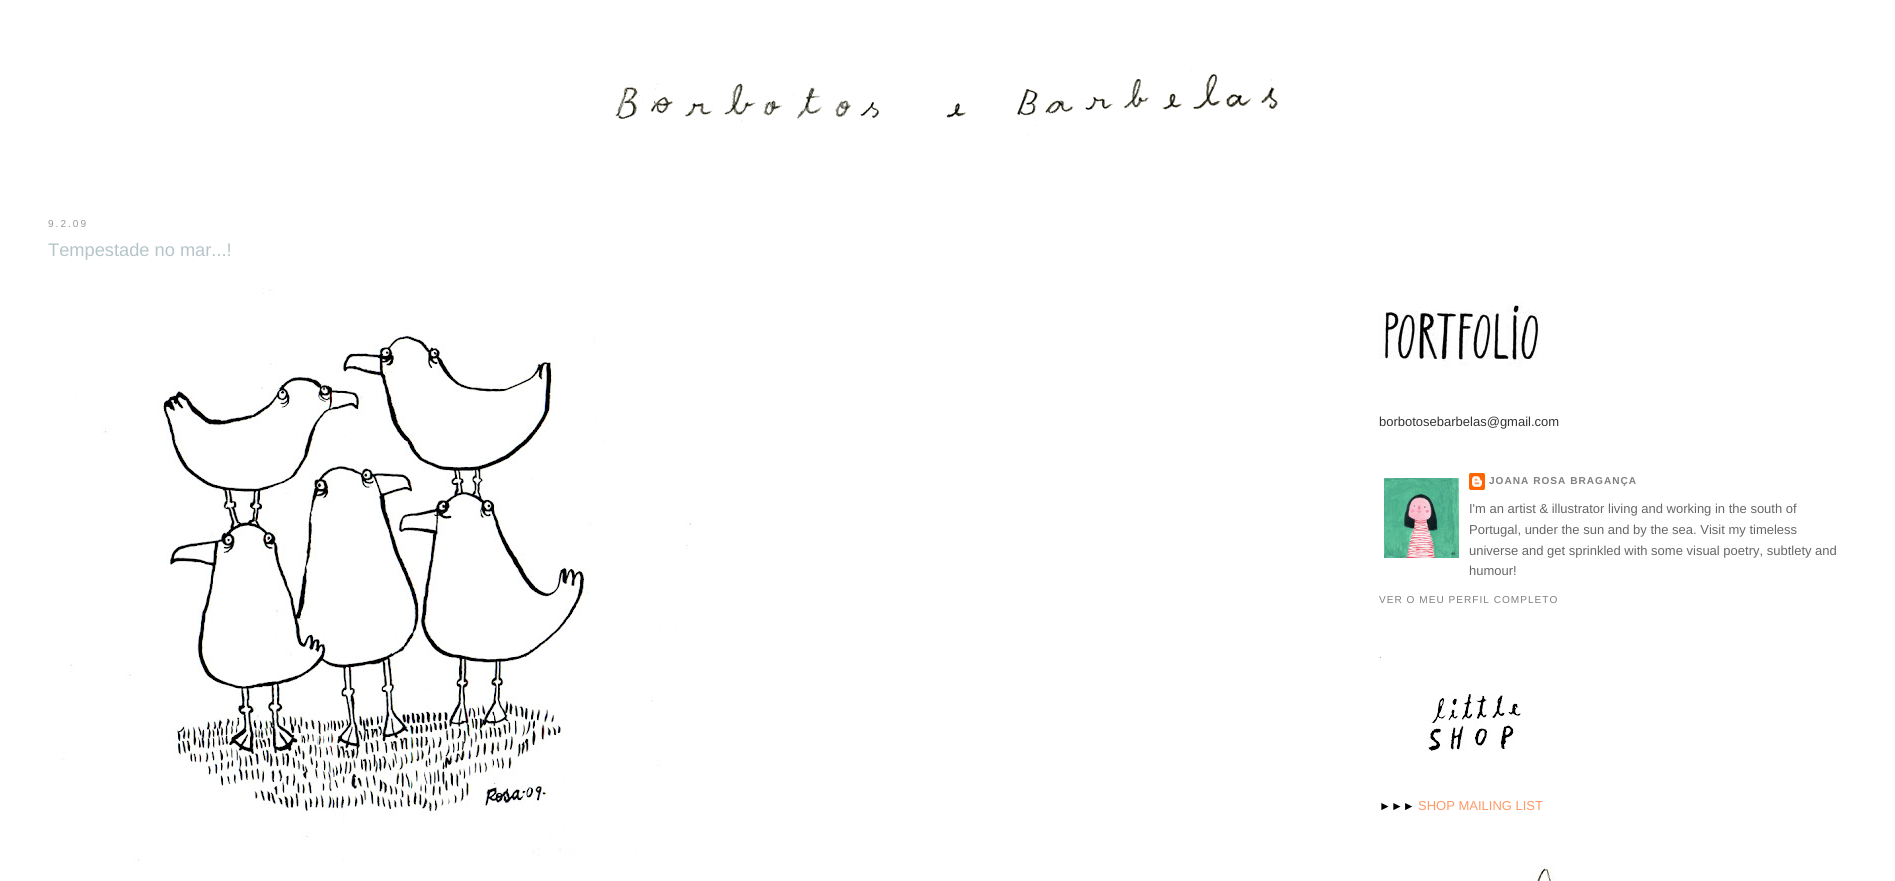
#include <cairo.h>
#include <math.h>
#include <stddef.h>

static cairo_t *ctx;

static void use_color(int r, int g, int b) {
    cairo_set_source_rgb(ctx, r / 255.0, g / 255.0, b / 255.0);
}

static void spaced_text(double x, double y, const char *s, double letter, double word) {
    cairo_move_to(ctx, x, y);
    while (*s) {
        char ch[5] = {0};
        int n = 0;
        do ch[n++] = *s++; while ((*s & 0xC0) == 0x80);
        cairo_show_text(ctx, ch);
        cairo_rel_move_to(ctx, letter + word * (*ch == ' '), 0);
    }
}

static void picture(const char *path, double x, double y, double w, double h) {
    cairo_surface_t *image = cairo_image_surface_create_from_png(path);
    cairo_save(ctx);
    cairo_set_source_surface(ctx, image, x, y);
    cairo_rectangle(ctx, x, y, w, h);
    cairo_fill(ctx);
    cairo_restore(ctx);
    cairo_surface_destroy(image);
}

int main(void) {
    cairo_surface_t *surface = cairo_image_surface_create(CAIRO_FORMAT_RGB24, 1895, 881);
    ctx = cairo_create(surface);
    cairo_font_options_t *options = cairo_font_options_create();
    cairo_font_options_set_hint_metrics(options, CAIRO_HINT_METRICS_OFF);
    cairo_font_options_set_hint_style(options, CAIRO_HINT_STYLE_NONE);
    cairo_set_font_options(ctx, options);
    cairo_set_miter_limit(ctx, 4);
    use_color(255, 255, 255);
    cairo_paint(ctx);
    picture("img1.png", 615, 69, 663, 66);
    cairo_select_font_face(ctx, "Liberation Sans", CAIRO_FONT_SLANT_NORMAL, CAIRO_FONT_WEIGHT_NORMAL);
    cairo_set_font_size(ctx, 10.1);
    use_color(153, 153, 153);
    spaced_text(48, 227, "9.2.09", 2, 0);
    cairo_set_font_size(ctx, 18.25);
    use_color(181, 197, 201);
    cairo_move_to(ctx, 48, 256);
    cairo_show_text(ctx, "Tempestade no mar...!");
    picture("img2.png", 61, 288, 631, 574);
    picture("img3.png", 1379, 303, 160, 64);
    cairo_set_font_size(ctx, 13);
    use_color(51, 51, 51);
    cairo_move_to(ctx, 1379, 426);
    cairo_show_text(ctx, "borbotosebarbelas@gmail.com");
    picture("img4.png", 1384, 478, 75, 80);
    picture("img5.png", 1469, 473, 16, 17);
    cairo_select_font_face(ctx, "Liberation Sans", CAIRO_FONT_SLANT_NORMAL, CAIRO_FONT_WEIGHT_BOLD);
    cairo_set_font_size(ctx, 10.1);
    use_color(127, 127, 127);
    spaced_text(1489, 484, "JOANA ROSA BRAGANÇA", 1, 0);
    cairo_select_font_face(ctx, "Liberation Sans", CAIRO_FONT_SLANT_NORMAL, CAIRO_FONT_WEIGHT_NORMAL);
    cairo_set_font_size(ctx, 13);
    use_color(102, 102, 102);
    cairo_move_to(ctx, 1469, 513);
    cairo_show_text(ctx, "I'm an artist & illustrator living and working in the south of");
    cairo_move_to(ctx, 1469, 534);
    cairo_show_text(ctx, "Portugal, under the sun and by the sea. Visit my timeless");
    cairo_move_to(ctx, 1469, 555);
    cairo_show_text(ctx, "universe and get sprinkled with some visual poetry, subtlety and");
    cairo_move_to(ctx, 1469, 575);
    cairo_show_text(ctx, "humour!");
    cairo_set_font_size(ctx, 10.1);
    use_color(127, 127, 127);
    spaced_text(1379, 603, "VER O MEU PERFIL COMPLETO", 1, 0);
    use_color(153, 153, 153);
    spaced_text(1379, 658, ".", 2, 0);
    picture("img6.png", 1428, 694, 93, 57);
    cairo_set_font_size(ctx, 12);
    use_color(0, 0, 0);
    cairo_move_to(ctx, 1379, 810);
    cairo_show_text(ctx, "►►►");
    cairo_set_font_size(ctx, 13);
    use_color(255, 153, 102);
    cairo_move_to(ctx, 1418, 810);
    cairo_show_text(ctx, "SHOP MAILING LIST");
    picture("img7.png", 1531, 857, 24, 24);
    cairo_surface_write_to_png(surface, "result.png");
    cairo_font_options_destroy(options);
    cairo_destroy(ctx);
    cairo_surface_destroy(surface);
    return 0;
}
